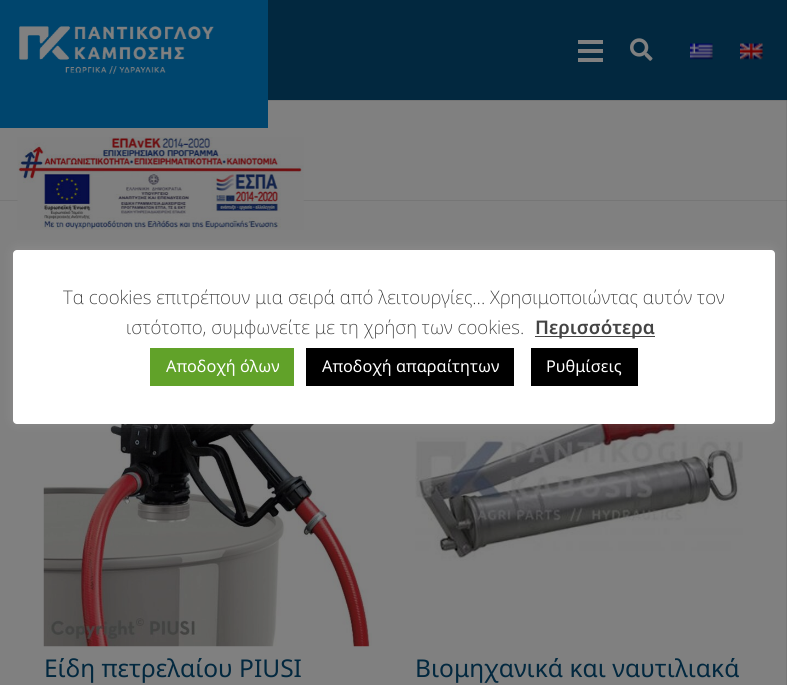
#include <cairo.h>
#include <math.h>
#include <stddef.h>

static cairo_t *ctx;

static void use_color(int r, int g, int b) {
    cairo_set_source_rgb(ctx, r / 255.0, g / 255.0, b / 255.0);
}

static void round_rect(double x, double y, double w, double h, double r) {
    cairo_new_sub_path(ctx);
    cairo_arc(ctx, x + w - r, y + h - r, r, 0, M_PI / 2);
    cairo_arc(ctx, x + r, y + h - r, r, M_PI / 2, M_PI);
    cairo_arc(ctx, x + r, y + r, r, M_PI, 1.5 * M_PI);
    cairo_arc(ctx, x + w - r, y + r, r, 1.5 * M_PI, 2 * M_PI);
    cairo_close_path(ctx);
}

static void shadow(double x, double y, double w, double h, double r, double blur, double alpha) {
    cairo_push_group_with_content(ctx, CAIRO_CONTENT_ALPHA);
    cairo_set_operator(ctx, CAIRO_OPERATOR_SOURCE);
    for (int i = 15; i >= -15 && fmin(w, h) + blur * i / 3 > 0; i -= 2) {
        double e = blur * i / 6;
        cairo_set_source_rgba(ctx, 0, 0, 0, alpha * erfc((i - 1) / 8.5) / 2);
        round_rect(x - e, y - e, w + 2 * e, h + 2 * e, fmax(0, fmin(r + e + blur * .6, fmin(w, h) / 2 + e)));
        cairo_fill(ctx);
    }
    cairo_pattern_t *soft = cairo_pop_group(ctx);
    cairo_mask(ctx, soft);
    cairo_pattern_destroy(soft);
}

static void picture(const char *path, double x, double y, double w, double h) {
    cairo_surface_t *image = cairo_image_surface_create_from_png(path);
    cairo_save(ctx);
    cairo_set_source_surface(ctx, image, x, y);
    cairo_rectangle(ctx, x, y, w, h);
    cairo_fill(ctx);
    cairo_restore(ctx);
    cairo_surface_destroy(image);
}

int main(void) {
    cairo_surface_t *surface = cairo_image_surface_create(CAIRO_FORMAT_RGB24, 787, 685);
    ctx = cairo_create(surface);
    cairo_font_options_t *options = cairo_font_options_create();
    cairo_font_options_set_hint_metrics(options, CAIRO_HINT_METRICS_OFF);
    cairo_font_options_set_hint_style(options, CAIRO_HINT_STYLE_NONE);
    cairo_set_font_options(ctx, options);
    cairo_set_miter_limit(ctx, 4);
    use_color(128, 128, 128);
    cairo_paint(ctx);
    use_color(118, 118, 118);
    cairo_new_path(ctx);
    cairo_move_to(ctx, 0, 100);
    cairo_line_to(ctx, 0, 101);
    cairo_line_to(ctx, 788, 101);
    cairo_line_to(ctx, 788, 1);
    cairo_line_to(ctx, 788, 100);
    cairo_close_path(ctx);
    cairo_fill(ctx);
    use_color(2, 40, 63);
    cairo_rectangle(ctx, 268, 0, 519, 100);
    cairo_fill(ctx);
    use_color(118, 118, 118);
    cairo_new_path(ctx);
    cairo_move_to(ctx, 0, 200);
    cairo_line_to(ctx, 0, 201);
    cairo_line_to(ctx, 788, 201);
    cairo_line_to(ctx, 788, 101);
    cairo_line_to(ctx, 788, 200);
    cairo_close_path(ctx);
    cairo_fill(ctx);
    cairo_set_source_rgba(ctx, 0, 0, 0, 0.08);
    cairo_rectangle(ctx, 786, 0, 1, 685);
    cairo_fill(ctx);
    picture("img6.png", 43, 424, 329, 223);
    picture("img7.png", 415, 424, 328, 137);
    use_color(172, 171, 171);
    shadow(13, 249, 762, 174, 4, 6, 0.3);
    use_color(255, 255, 255);
    round_rect(13, 250, 762, 174, 4);
    cairo_fill(ctx);
    cairo_select_font_face(ctx, "Noto Sans ExtraLight", CAIRO_FONT_SLANT_NORMAL, CAIRO_FONT_WEIGHT_NORMAL);
    cairo_set_font_size(ctx, 18.75);
    use_color(51, 51, 51);
    cairo_move_to(ctx, 63, 304);
    cairo_show_text(ctx, "Τα cookies επιτρέπουν μια σειρά από λειτουργίες... Χρησιμοποιώντας αυτόν τον");
    cairo_move_to(ctx, 126, 334);
    cairo_show_text(ctx, "ιστότοπο, συμφωνείτε με τη χρήση των cookies.");
    use_color(68, 68, 68);
    cairo_rectangle(ctx, 535, 336, 120, 1);
    cairo_fill(ctx);
    cairo_select_font_face(ctx, "Noto Sans SemiBold", CAIRO_FONT_SLANT_NORMAL, CAIRO_FONT_WEIGHT_NORMAL);
    cairo_move_to(ctx, 535, 334);
    cairo_show_text(ctx, "Περισσότερα");
    use_color(97, 162, 41);
    cairo_rectangle(ctx, 150, 348, 144, 38);
    cairo_fill(ctx);
    cairo_select_font_face(ctx, "Noto Sans", CAIRO_FONT_SLANT_NORMAL, CAIRO_FONT_WEIGHT_NORMAL);
    cairo_set_font_size(ctx, 16.25);
    use_color(255, 255, 255);
    cairo_move_to(ctx, 166, 372);
    cairo_show_text(ctx, "Αποδοχή όλων");
    use_color(0, 0, 0);
    cairo_rectangle(ctx, 306, 348, 208, 38);
    cairo_fill(ctx);
    use_color(255, 255, 255);
    cairo_move_to(ctx, 322, 372);
    cairo_show_text(ctx, "Αποδοχή απαραίτητων");
    use_color(0, 0, 0);
    cairo_rectangle(ctx, 531, 348, 107, 38);
    cairo_fill(ctx);
    use_color(255, 255, 255);
    cairo_move_to(ctx, 546, 372);
    cairo_show_text(ctx, "Ρυθμίσεις");
    use_color(0, 69, 109);
    cairo_rectangle(ctx, 0, 0, 268, 128);
    cairo_fill(ctx);
    picture("img1.png", 19, 26, 195, 48);
    use_color(128, 128, 128);
    cairo_rectangle(ctx, 578, 49, 25, 4);
    cairo_fill(ctx);
    cairo_rectangle(ctx, 578, 40, 25, 4);
    cairo_fill(ctx);
    cairo_rectangle(ctx, 578, 58, 25, 4);
    cairo_fill(ctx);
    picture("img2.png", 630, 38, 23, 23);
    picture("img3.png", 690, 43, 23, 17);
    picture("img4.png", 740, 43, 23, 17);
    picture("img5.png", 17, 137, 287, 93);
    cairo_set_font_size(ctx, 24.5);
    use_color(2, 40, 63);
    cairo_move_to(ctx, 44, 677);
    cairo_show_text(ctx, "Είδη πετρελαίου PIUSI");
    cairo_move_to(ctx, 415, 677);
    cairo_show_text(ctx, "Βιομηχανικά και ναυτιλιακά");
    cairo_surface_write_to_png(surface, "result.png");
    cairo_font_options_destroy(options);
    cairo_destroy(ctx);
    cairo_surface_destroy(surface);
    return 0;
}
